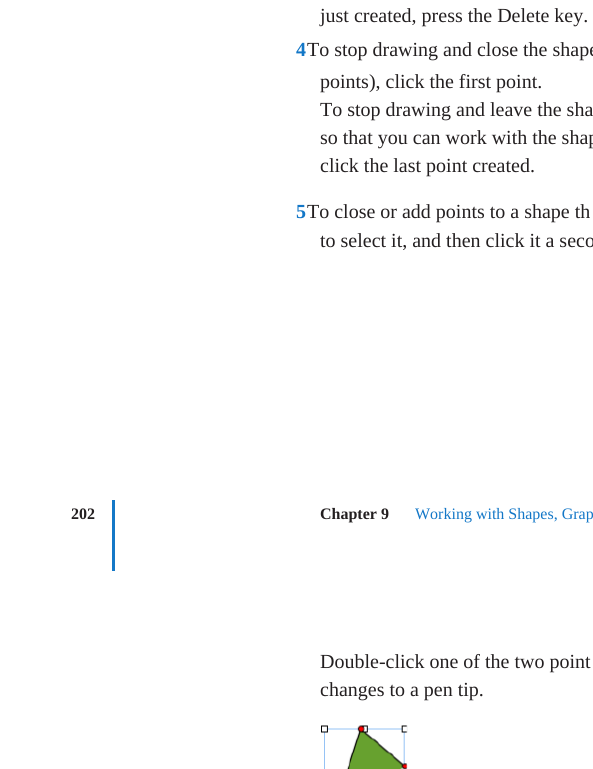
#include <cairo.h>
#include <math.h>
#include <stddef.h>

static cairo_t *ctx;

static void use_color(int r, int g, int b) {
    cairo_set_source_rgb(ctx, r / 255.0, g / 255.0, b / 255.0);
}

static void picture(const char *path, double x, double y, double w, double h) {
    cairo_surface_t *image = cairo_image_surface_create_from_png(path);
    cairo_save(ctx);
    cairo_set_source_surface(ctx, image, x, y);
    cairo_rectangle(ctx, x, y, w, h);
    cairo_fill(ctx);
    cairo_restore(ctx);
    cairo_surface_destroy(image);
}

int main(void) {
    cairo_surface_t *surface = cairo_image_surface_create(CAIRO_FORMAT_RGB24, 593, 769);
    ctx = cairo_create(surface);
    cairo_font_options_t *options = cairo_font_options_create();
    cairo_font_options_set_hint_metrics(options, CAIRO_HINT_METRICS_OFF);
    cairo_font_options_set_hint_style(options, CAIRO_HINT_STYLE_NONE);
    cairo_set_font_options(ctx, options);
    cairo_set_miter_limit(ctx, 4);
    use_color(255, 255, 255);
    cairo_paint(ctx);
    cairo_select_font_face(ctx, "Liberation Serif", CAIRO_FONT_SLANT_NORMAL, CAIRO_FONT_WEIGHT_NORMAL);
    cairo_set_font_size(ctx, 20);
    use_color(35, 31, 32);
    cairo_move_to(ctx, 320, 22);
    cairo_show_text(ctx, "just created, press the Delete key.");
    cairo_select_font_face(ctx, "Liberation Serif", CAIRO_FONT_SLANT_NORMAL, CAIRO_FONT_WEIGHT_BOLD);
    use_color(19, 119, 199);
    cairo_move_to(ctx, 296, 56);
    cairo_show_text(ctx, "4");
    cairo_select_font_face(ctx, "Liberation Serif", CAIRO_FONT_SLANT_NORMAL, CAIRO_FONT_WEIGHT_NORMAL);
    use_color(35, 31, 32);
    cairo_move_to(ctx, 307, 56);
    cairo_show_text(ctx, "To stop drawing and close the shape");
    cairo_move_to(ctx, 320, 88);
    cairo_show_text(ctx, "points), click the first point.");
    cairo_move_to(ctx, 320, 116);
    cairo_show_text(ctx, "To stop drawing and leave the sha");
    cairo_move_to(ctx, 320, 144);
    cairo_show_text(ctx, "so that you can work with the shap");
    cairo_move_to(ctx, 320, 172);
    cairo_show_text(ctx, "click the last point created.");
    cairo_select_font_face(ctx, "Liberation Serif", CAIRO_FONT_SLANT_NORMAL, CAIRO_FONT_WEIGHT_BOLD);
    use_color(19, 119, 199);
    cairo_move_to(ctx, 296, 218);
    cairo_show_text(ctx, "5");
    cairo_select_font_face(ctx, "Liberation Serif", CAIRO_FONT_SLANT_NORMAL, CAIRO_FONT_WEIGHT_NORMAL);
    use_color(35, 31, 32);
    cairo_move_to(ctx, 307, 218);
    cairo_show_text(ctx, "To close or add points to a shape th");
    cairo_move_to(ctx, 320, 247);
    cairo_show_text(ctx, "to select it, and then click it a seco");
    cairo_select_font_face(ctx, "Liberation Serif", CAIRO_FONT_SLANT_NORMAL, CAIRO_FONT_WEIGHT_BOLD);
    cairo_set_font_size(ctx, 16);
    cairo_move_to(ctx, 71, 519);
    cairo_show_text(ctx, "202");
    use_color(20, 120, 199);
    cairo_rectangle(ctx, 112, 500, 3, 71);
    cairo_fill(ctx);
    use_color(35, 31, 32);
    cairo_move_to(ctx, 320, 519);
    cairo_show_text(ctx, "Chapter 9");
    cairo_select_font_face(ctx, "Liberation Serif", CAIRO_FONT_SLANT_NORMAL, CAIRO_FONT_WEIGHT_NORMAL);
    use_color(19, 119, 199);
    cairo_move_to(ctx, 415, 519);
    cairo_show_text(ctx, "Working with Shapes, Grap");
    cairo_set_font_size(ctx, 20);
    use_color(35, 31, 32);
    cairo_move_to(ctx, 320, 668);
    cairo_show_text(ctx, "Double-click one of the two point");
    cairo_move_to(ctx, 320, 696);
    cairo_show_text(ctx, "changes to a pen tip.");
    picture("img1.png", 321, 725, 87, 44);
    cairo_surface_write_to_png(surface, "result.png");
    cairo_font_options_destroy(options);
    cairo_destroy(ctx);
    cairo_surface_destroy(surface);
    return 0;
}
